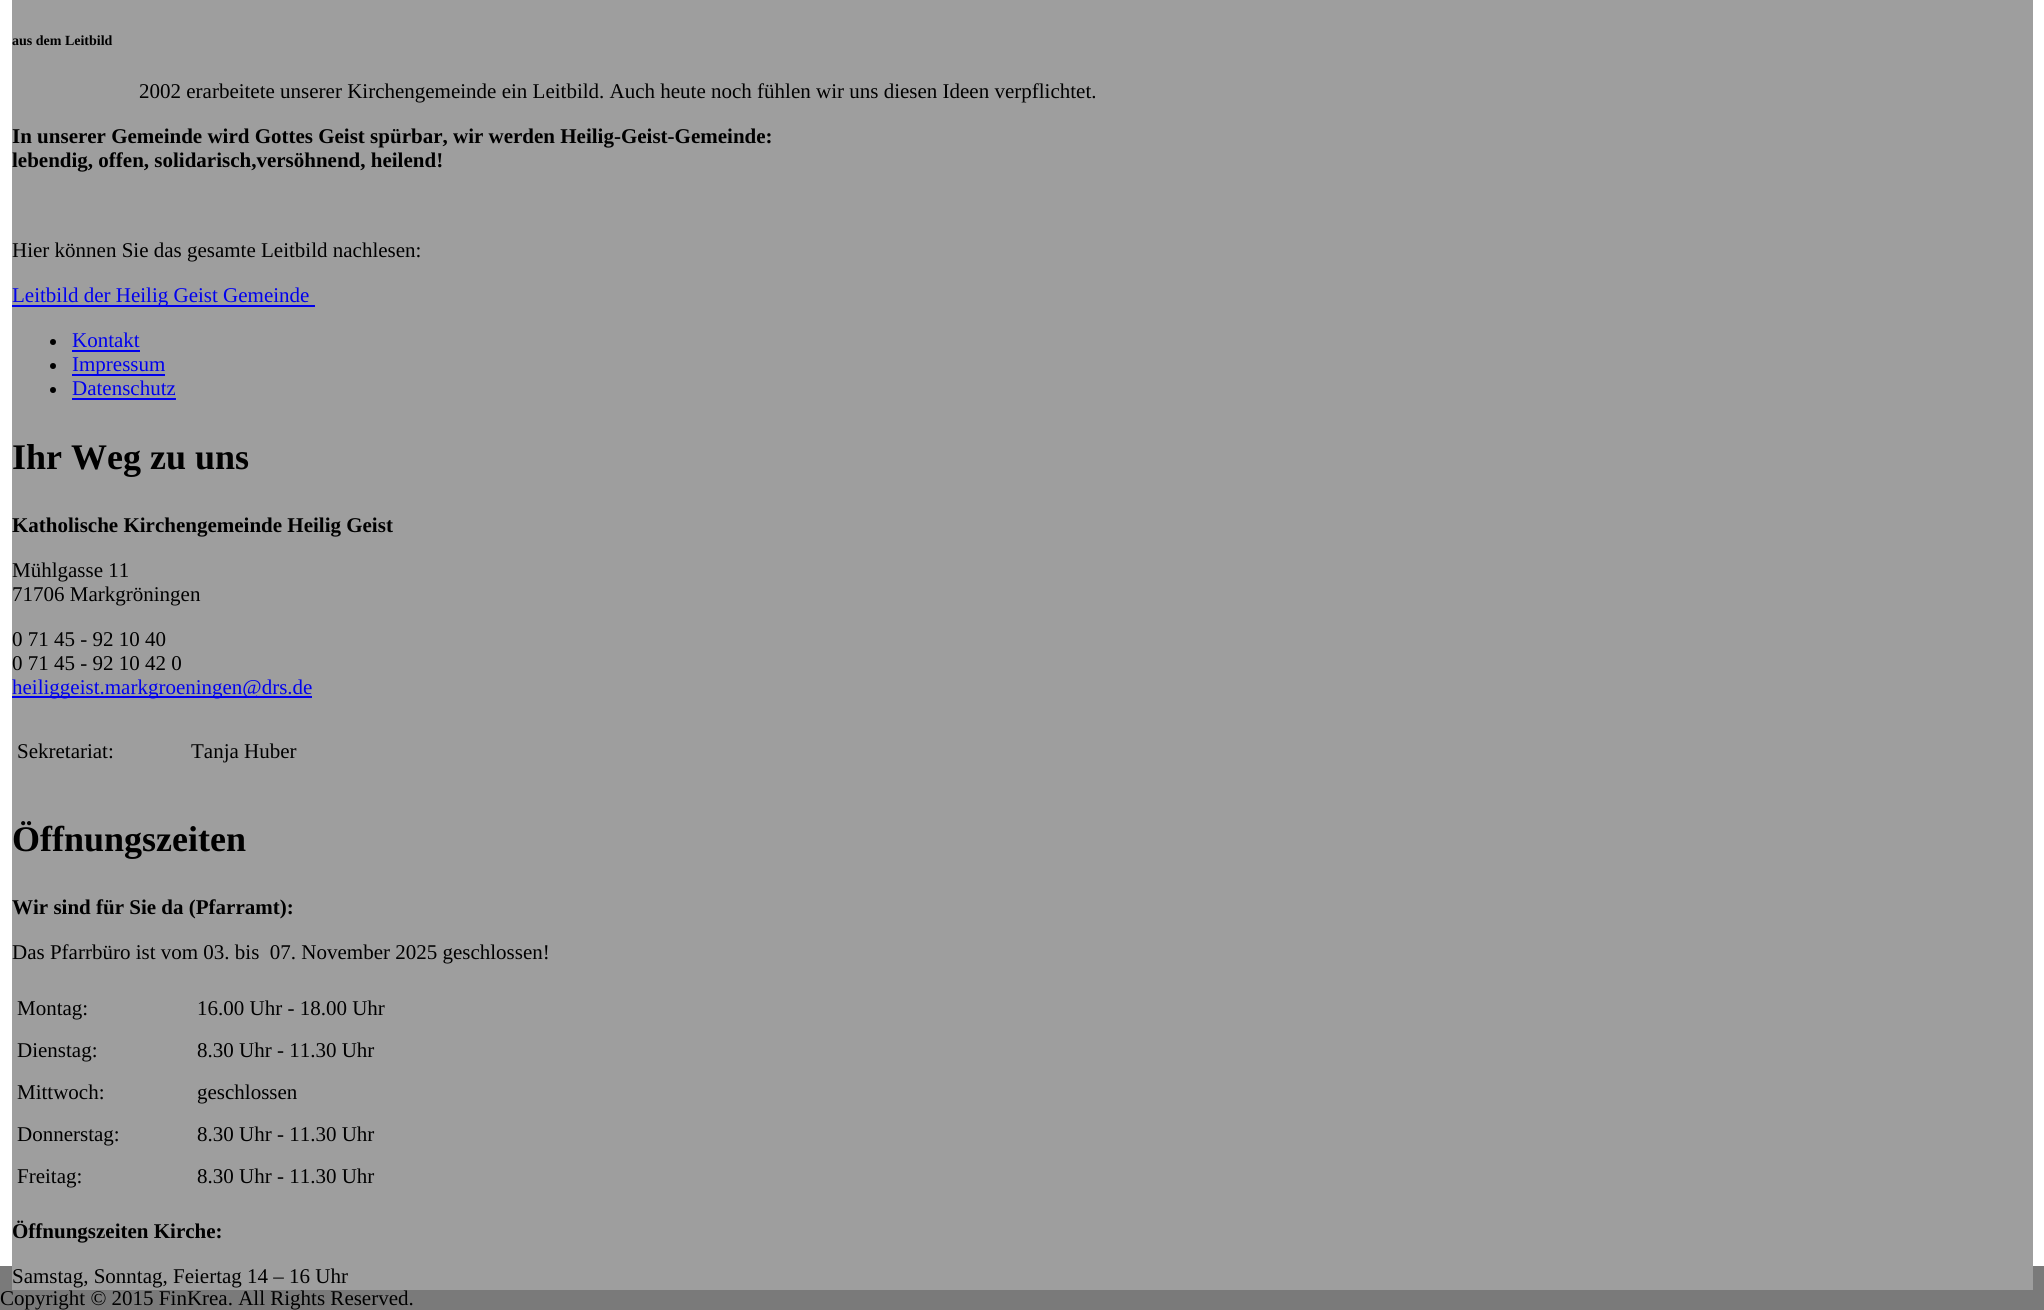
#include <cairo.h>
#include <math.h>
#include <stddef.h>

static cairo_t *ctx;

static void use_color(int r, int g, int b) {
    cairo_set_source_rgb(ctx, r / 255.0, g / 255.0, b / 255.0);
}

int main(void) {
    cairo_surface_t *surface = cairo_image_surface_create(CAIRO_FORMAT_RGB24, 2044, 1310);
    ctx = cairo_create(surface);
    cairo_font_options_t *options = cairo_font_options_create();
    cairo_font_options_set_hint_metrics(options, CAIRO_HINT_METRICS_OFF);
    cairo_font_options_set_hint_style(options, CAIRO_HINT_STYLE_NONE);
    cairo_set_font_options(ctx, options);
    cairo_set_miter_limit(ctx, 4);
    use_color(255, 255, 255);
    cairo_paint(ctx);
    use_color(122, 122, 122);
    cairo_rectangle(ctx, 0, 1266, 2044, 44);
    cairo_fill(ctx);
    use_color(158, 158, 158);
    cairo_rectangle(ctx, 12, 0, 2021, 1290);
    cairo_fill(ctx);
    cairo_select_font_face(ctx, "Liberation Serif", CAIRO_FONT_SLANT_NORMAL, CAIRO_FONT_WEIGHT_BOLD);
    cairo_set_font_size(ctx, 14);
    use_color(0, 0, 0);
    cairo_move_to(ctx, 12, 45);
    cairo_show_text(ctx, "aus dem Leitbild");
    cairo_select_font_face(ctx, "Liberation Serif", CAIRO_FONT_SLANT_NORMAL, CAIRO_FONT_WEIGHT_NORMAL);
    cairo_set_font_size(ctx, 21);
    cairo_move_to(ctx, 139, 98);
    cairo_show_text(ctx, "2002 erarbeitete unserer Kirchengemeinde ein Leitbild. Auch heute noch fühlen wir uns diesen Ideen verpflichtet.");
    cairo_select_font_face(ctx, "Liberation Serif", CAIRO_FONT_SLANT_NORMAL, CAIRO_FONT_WEIGHT_BOLD);
    cairo_move_to(ctx, 12, 143);
    cairo_show_text(ctx, "In unserer Gemeinde wird Gottes Geist spürbar, wir werden Heilig-Geist-Gemeinde:");
    cairo_move_to(ctx, 12, 167);
    cairo_show_text(ctx, "lebendig, offen, solidarisch,versöhnend, heilend!");
    cairo_select_font_face(ctx, "Liberation Serif", CAIRO_FONT_SLANT_NORMAL, CAIRO_FONT_WEIGHT_NORMAL);
    cairo_move_to(ctx, 12, 257);
    cairo_show_text(ctx, "Hier können Sie das gesamte Leitbild nachlesen:");
    use_color(0, 0, 238);
    cairo_rectangle(ctx, 12, 305, 303, 2);
    cairo_fill(ctx);
    cairo_move_to(ctx, 12, 302);
    cairo_show_text(ctx, "Leitbild der Heilig Geist Gemeinde");
    use_color(0, 0, 0);
    cairo_new_path(ctx);
    cairo_arc(ctx, 53, 342, 3, 0, 2 * M_PI);
    cairo_fill(ctx);
    use_color(0, 0, 238);
    cairo_move_to(ctx, 72, 347);
    cairo_show_text(ctx, "Kontakt");
    cairo_rectangle(ctx, 72, 350, 68, 2);
    cairo_fill(ctx);
    use_color(0, 0, 0);
    cairo_arc(ctx, 53, 366, 3, 0, 2 * M_PI);
    cairo_fill(ctx);
    use_color(0, 0, 238);
    cairo_rectangle(ctx, 72, 374, 93, 2);
    cairo_fill(ctx);
    cairo_move_to(ctx, 72, 371);
    cairo_show_text(ctx, "Impressum");
    use_color(0, 0, 0);
    cairo_new_path(ctx);
    cairo_arc(ctx, 53, 390, 3, 0, 2 * M_PI);
    cairo_fill(ctx);
    use_color(0, 0, 238);
    cairo_move_to(ctx, 72, 395);
    cairo_show_text(ctx, "Datenschutz");
    cairo_rectangle(ctx, 72, 398, 104, 2);
    cairo_fill(ctx);
    cairo_select_font_face(ctx, "Liberation Serif", CAIRO_FONT_SLANT_NORMAL, CAIRO_FONT_WEIGHT_BOLD);
    cairo_set_font_size(ctx, 36);
    use_color(0, 0, 0);
    cairo_move_to(ctx, 12, 469);
    cairo_show_text(ctx, "Ihr Weg zu uns");
    cairo_set_font_size(ctx, 21);
    cairo_move_to(ctx, 12, 532);
    cairo_show_text(ctx, "Katholische Kirchengemeinde Heilig Geist");
    cairo_select_font_face(ctx, "Liberation Serif", CAIRO_FONT_SLANT_NORMAL, CAIRO_FONT_WEIGHT_NORMAL);
    cairo_move_to(ctx, 12, 577);
    cairo_show_text(ctx, "Mühlgasse 11");
    cairo_move_to(ctx, 12, 601);
    cairo_show_text(ctx, "71706 Markgröningen");
    cairo_move_to(ctx, 12, 646);
    cairo_show_text(ctx, "0 71 45 - 92 10 40");
    cairo_move_to(ctx, 12, 670);
    cairo_show_text(ctx, "0 71 45 - 92 10 42 0");
    use_color(0, 0, 238);
    cairo_rectangle(ctx, 12, 696, 300, 2);
    cairo_fill(ctx);
    cairo_move_to(ctx, 12, 694);
    cairo_show_text(ctx, "heiliggeist.markgroeningen@drs.de");
    use_color(0, 0, 0);
    cairo_move_to(ctx, 17, 758);
    cairo_show_text(ctx, "Sekretariat:");
    cairo_move_to(ctx, 191, 758);
    cairo_show_text(ctx, "Tanja Huber");
    cairo_select_font_face(ctx, "Liberation Serif", CAIRO_FONT_SLANT_NORMAL, CAIRO_FONT_WEIGHT_BOLD);
    cairo_set_font_size(ctx, 36);
    cairo_move_to(ctx, 12, 851);
    cairo_show_text(ctx, "Öffnungszeiten");
    cairo_set_font_size(ctx, 21);
    cairo_move_to(ctx, 12, 914);
    cairo_show_text(ctx, "Wir sind für Sie da (Pfarramt):");
    cairo_select_font_face(ctx, "Liberation Serif", CAIRO_FONT_SLANT_NORMAL, CAIRO_FONT_WEIGHT_NORMAL);
    cairo_move_to(ctx, 12, 959);
    cairo_show_text(ctx, "Das Pfarrbüro ist vom 03. bis  07. November 2025 geschlossen!");
    cairo_move_to(ctx, 17, 1015);
    cairo_show_text(ctx, "Montag:");
    cairo_move_to(ctx, 197, 1015);
    cairo_show_text(ctx, "16.00 Uhr - 18.00 Uhr");
    cairo_move_to(ctx, 17, 1057);
    cairo_show_text(ctx, "Dienstag:");
    cairo_move_to(ctx, 197, 1057);
    cairo_show_text(ctx, "8.30 Uhr - 11.30 Uhr");
    cairo_move_to(ctx, 17, 1099);
    cairo_show_text(ctx, "Mittwoch:");
    cairo_move_to(ctx, 197, 1099);
    cairo_show_text(ctx, "geschlossen");
    cairo_move_to(ctx, 17, 1141);
    cairo_show_text(ctx, "Donnerstag:");
    cairo_move_to(ctx, 197, 1141);
    cairo_show_text(ctx, "8.30 Uhr - 11.30 Uhr");
    cairo_move_to(ctx, 17, 1183);
    cairo_show_text(ctx, "Freitag:");
    cairo_move_to(ctx, 197, 1183);
    cairo_show_text(ctx, "8.30 Uhr - 11.30 Uhr");
    cairo_select_font_face(ctx, "Liberation Serif", CAIRO_FONT_SLANT_NORMAL, CAIRO_FONT_WEIGHT_BOLD);
    cairo_move_to(ctx, 12, 1238);
    cairo_show_text(ctx, "Öffnungszeiten Kirche:");
    cairo_select_font_face(ctx, "Liberation Serif", CAIRO_FONT_SLANT_NORMAL, CAIRO_FONT_WEIGHT_NORMAL);
    cairo_move_to(ctx, 12, 1283);
    cairo_show_text(ctx, "Samstag, Sonntag, Feiertag 14 – 16 Uhr");
    cairo_move_to(ctx, 0, 1305);
    cairo_show_text(ctx, "Copyright © 2015 FinKrea. All Rights Reserved.");
    cairo_surface_write_to_png(surface, "result.png");
    cairo_font_options_destroy(options);
    cairo_destroy(ctx);
    cairo_surface_destroy(surface);
    return 0;
}
